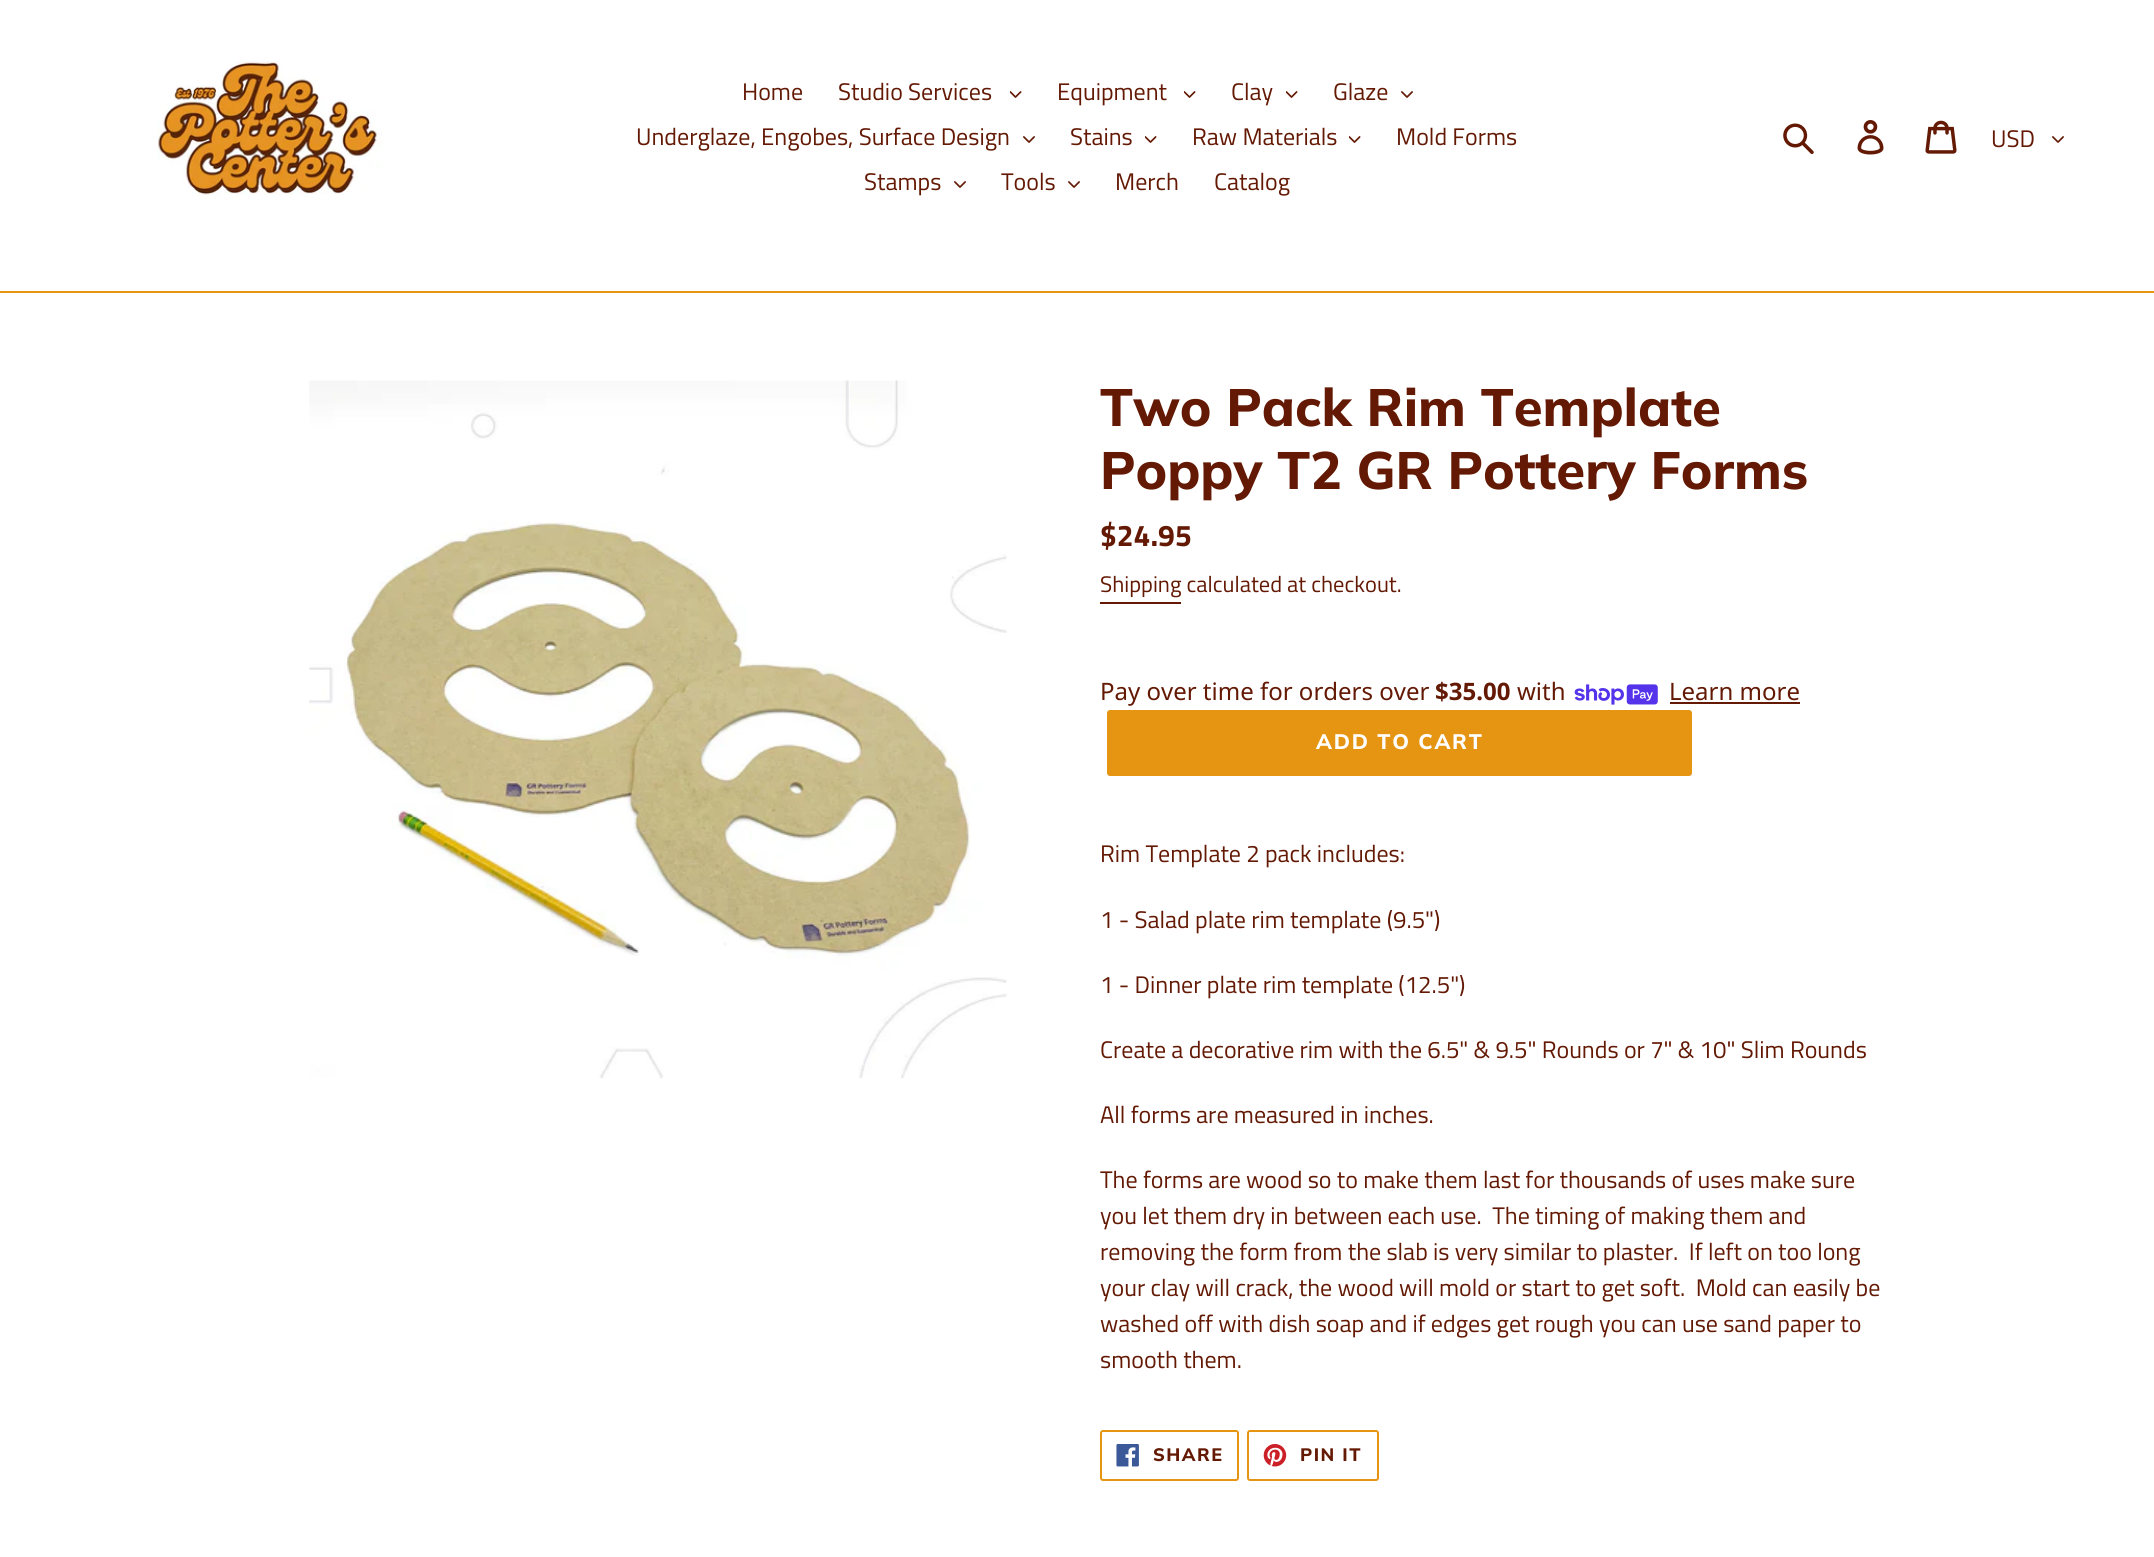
#include <cairo.h>
#include <math.h>
#include <stddef.h>

static cairo_t *ctx;

static void use_color(int r, int g, int b) {
    cairo_set_source_rgb(ctx, r / 255.0, g / 255.0, b / 255.0);
}

static void spaced_text(double x, double y, const char *s, double letter, double word) {
    cairo_move_to(ctx, x, y);
    while (*s) {
        char ch[5] = {0};
        int n = 0;
        do ch[n++] = *s++; while ((*s & 0xC0) == 0x80);
        cairo_show_text(ctx, ch);
        cairo_rel_move_to(ctx, letter + word * (*ch == ' '), 0);
    }
}

static void round_rect(double x, double y, double w, double h, double r) {
    cairo_new_sub_path(ctx);
    cairo_arc(ctx, x + w - r, y + h - r, r, 0, M_PI / 2);
    cairo_arc(ctx, x + r, y + h - r, r, M_PI / 2, M_PI);
    cairo_arc(ctx, x + r, y + r, r, M_PI, 1.5 * M_PI);
    cairo_arc(ctx, x + w - r, y + r, r, 1.5 * M_PI, 2 * M_PI);
    cairo_close_path(ctx);
}

static void picture(const char *path, double x, double y, double w, double h) {
    cairo_surface_t *image = cairo_image_surface_create_from_png(path);
    cairo_save(ctx);
    cairo_set_source_surface(ctx, image, x, y);
    cairo_rectangle(ctx, x, y, w, h);
    cairo_fill(ctx);
    cairo_restore(ctx);
    cairo_surface_destroy(image);
}

int main(void) {
    cairo_surface_t *surface = cairo_image_surface_create(CAIRO_FORMAT_RGB24, 2154, 1557);
    ctx = cairo_create(surface);
    cairo_font_options_t *options = cairo_font_options_create();
    cairo_font_options_set_hint_metrics(options, CAIRO_HINT_METRICS_OFF);
    cairo_font_options_set_hint_style(options, CAIRO_HINT_STYLE_NONE);
    cairo_set_font_options(ctx, options);
    cairo_set_miter_limit(ctx, 4);
    use_color(255, 255, 255);
    cairo_paint(ctx);
    use_color(229, 149, 18);
    cairo_rectangle(ctx, 0, 291, 2154, 2);
    cairo_fill(ctx);
    picture("img1.png", 157, 61, 226, 134);
    cairo_select_font_face(ctx, "Titillium Web", CAIRO_FONT_SLANT_NORMAL, CAIRO_FONT_WEIGHT_NORMAL);
    cairo_set_font_size(ctx, 24);
    use_color(99, 25, 4);
    cairo_move_to(ctx, 742, 100);
    cairo_show_text(ctx, "Home");
    cairo_move_to(ctx, 838, 100);
    cairo_show_text(ctx, "Studio Services");
    picture("img2.png", 1010, 91, 12, 7);
    cairo_move_to(ctx, 1057, 100);
    cairo_show_text(ctx, "Equipment");
    picture("img2.png", 1184, 91, 12, 7);
    cairo_move_to(ctx, 1231, 100);
    cairo_show_text(ctx, "Clay");
    picture("img2.png", 1286, 91, 12, 7);
    cairo_move_to(ctx, 1333, 100);
    cairo_show_text(ctx, "Glaze");
    picture("img3.png", 1401, 91, 12, 7);
    cairo_move_to(ctx, 636, 145);
    cairo_show_text(ctx, "Underglaze, Engobes, Surface Design");
    picture("img3.png", 1023, 136, 12, 7);
    cairo_move_to(ctx, 1070, 145);
    cairo_show_text(ctx, "Stains");
    picture("img2.png", 1145, 136, 12, 7);
    cairo_move_to(ctx, 1192, 145);
    cairo_show_text(ctx, "Raw Materials");
    picture("img2.png", 1349, 136, 12, 7);
    cairo_move_to(ctx, 1396, 145);
    cairo_show_text(ctx, "Mold Forms");
    cairo_move_to(ctx, 864, 190);
    cairo_show_text(ctx, "Stamps");
    picture("img3.png", 954, 181, 12, 7);
    cairo_move_to(ctx, 1001, 190);
    cairo_show_text(ctx, "Tools");
    picture("img3.png", 1068, 181, 12, 7);
    cairo_move_to(ctx, 1115, 190);
    cairo_show_text(ctx, "Merch");
    cairo_move_to(ctx, 1214, 190);
    cairo_show_text(ctx, "Catalog");
    picture("img4.png", 1783, 123, 31, 31);
    picture("img5.png", 1857, 120, 27, 35);
    picture("img6.png", 1925, 120, 32, 34);
    cairo_move_to(ctx, 1991, 147);
    cairo_show_text(ctx, "USD");
    picture("img3.png", 2052, 136, 12, 7);
    picture("img7.png", 309, 380, 698, 699);
    cairo_select_font_face(ctx, "Muli ExtraBold", CAIRO_FONT_SLANT_NORMAL, CAIRO_FONT_WEIGHT_NORMAL);
    cairo_set_font_size(ctx, 52.5);
    cairo_move_to(ctx, 1100, 426);
    cairo_show_text(ctx, "Two Pack Rim Template");
    cairo_move_to(ctx, 1100, 489);
    cairo_show_text(ctx, "Poppy T2 GR Pottery Forms");
    cairo_select_font_face(ctx, "Titillium Web", CAIRO_FONT_SLANT_NORMAL, CAIRO_FONT_WEIGHT_BOLD);
    cairo_set_font_size(ctx, 30);
    cairo_move_to(ctx, 1100, 546);
    cairo_show_text(ctx, "$24.95");
    cairo_select_font_face(ctx, "Titillium Web", CAIRO_FONT_SLANT_NORMAL, CAIRO_FONT_WEIGHT_NORMAL);
    cairo_set_font_size(ctx, 22.5);
    cairo_move_to(ctx, 1100, 592);
    cairo_show_text(ctx, "Shipping calculated at checkout.");
    cairo_rectangle(ctx, 1100, 602, 81, 2);
    cairo_fill(ctx);
    cairo_select_font_face(ctx, "Noto Sans", CAIRO_FONT_SLANT_NORMAL, CAIRO_FONT_WEIGHT_NORMAL);
    cairo_set_font_size(ctx, 24);
    cairo_move_to(ctx, 1100, 700);
    cairo_show_text(ctx, "Pay over time for orders over");
    cairo_select_font_face(ctx, "Noto Sans", CAIRO_FONT_SLANT_NORMAL, CAIRO_FONT_WEIGHT_BOLD);
    cairo_move_to(ctx, 1435, 700);
    cairo_show_text(ctx, "$35.00");
    cairo_select_font_face(ctx, "Noto Sans", CAIRO_FONT_SLANT_NORMAL, CAIRO_FONT_WEIGHT_NORMAL);
    cairo_move_to(ctx, 1517, 700);
    cairo_show_text(ctx, "with");
    picture("img8.png", 1574, 684, 84, 21);
    cairo_move_to(ctx, 1669, 700);
    cairo_show_text(ctx, "Learn more");
    cairo_rectangle(ctx, 1670, 702, 130, 2);
    cairo_fill(ctx);
    use_color(229, 149, 18);
    round_rect(1107, 710, 585, 66, 3);
    cairo_fill(ctx);
    cairo_select_font_face(ctx, "Muli ExtraBold", CAIRO_FONT_SLANT_NORMAL, CAIRO_FONT_WEIGHT_NORMAL);
    cairo_set_font_size(ctx, 21);
    use_color(255, 255, 255);
    spaced_text(1316, 749, "ADD TO CART", 1.75, 0);
    cairo_select_font_face(ctx, "Titillium Web", CAIRO_FONT_SLANT_NORMAL, CAIRO_FONT_WEIGHT_NORMAL);
    cairo_set_font_size(ctx, 24);
    use_color(99, 25, 4);
    cairo_move_to(ctx, 1100, 862);
    cairo_show_text(ctx, "Rim Template 2 pack includes:");
    cairo_move_to(ctx, 1100, 928);
    cairo_show_text(ctx, "1 - Salad plate rim template (9.5\")");
    cairo_move_to(ctx, 1100, 993);
    cairo_show_text(ctx, "1 - Dinner plate rim template (12.5\")");
    cairo_move_to(ctx, 1100, 1058);
    cairo_show_text(ctx, "Create a decorative rim with the 6.5\" & 9.5\" Rounds or 7\" & 10\" Slim Rounds");
    cairo_move_to(ctx, 1100, 1123);
    cairo_show_text(ctx, "All forms are measured in inches.");
    cairo_move_to(ctx, 1100, 1188);
    cairo_show_text(ctx, "The forms are wood so to make them last for thousands of uses make sure");
    cairo_move_to(ctx, 1100, 1224);
    cairo_show_text(ctx, "you let them dry in between each use.  The timing of making them and");
    cairo_move_to(ctx, 1100, 1260);
    cairo_show_text(ctx, "removing the form from the slab is very similar to plaster.  If left on too long");
    cairo_move_to(ctx, 1100, 1296);
    cairo_show_text(ctx, "your clay will crack, the wood will mold or start to get soft.  Mold can easily be");
    cairo_move_to(ctx, 1100, 1332);
    cairo_show_text(ctx, "washed off with dish soap and if edges get rough you can use sand paper to");
    cairo_move_to(ctx, 1100, 1368);
    cairo_show_text(ctx, "smooth them.");
    round_rect(1101, 1431, 137, 49, 2);
    use_color(229, 149, 18);
    cairo_stroke(ctx);
    picture("img9.png", 1116, 1444, 23, 23);
    cairo_select_font_face(ctx, "Muli ExtraBold", CAIRO_FONT_SLANT_NORMAL, CAIRO_FONT_WEIGHT_NORMAL);
    cairo_set_font_size(ctx, 18);
    use_color(99, 25, 4);
    spaced_text(1153, 1461, "SHARE", 1.5, 0);
    round_rect(1248, 1431, 130, 49, 2);
    use_color(229, 149, 18);
    cairo_stroke(ctx);
    picture("img10.png", 1263, 1444, 24, 23);
    use_color(99, 25, 4);
    spaced_text(1300, 1461, "PIN IT", 1.5, 0);
    cairo_surface_write_to_png(surface, "result.png");
    cairo_font_options_destroy(options);
    cairo_destroy(ctx);
    cairo_surface_destroy(surface);
    return 0;
}
